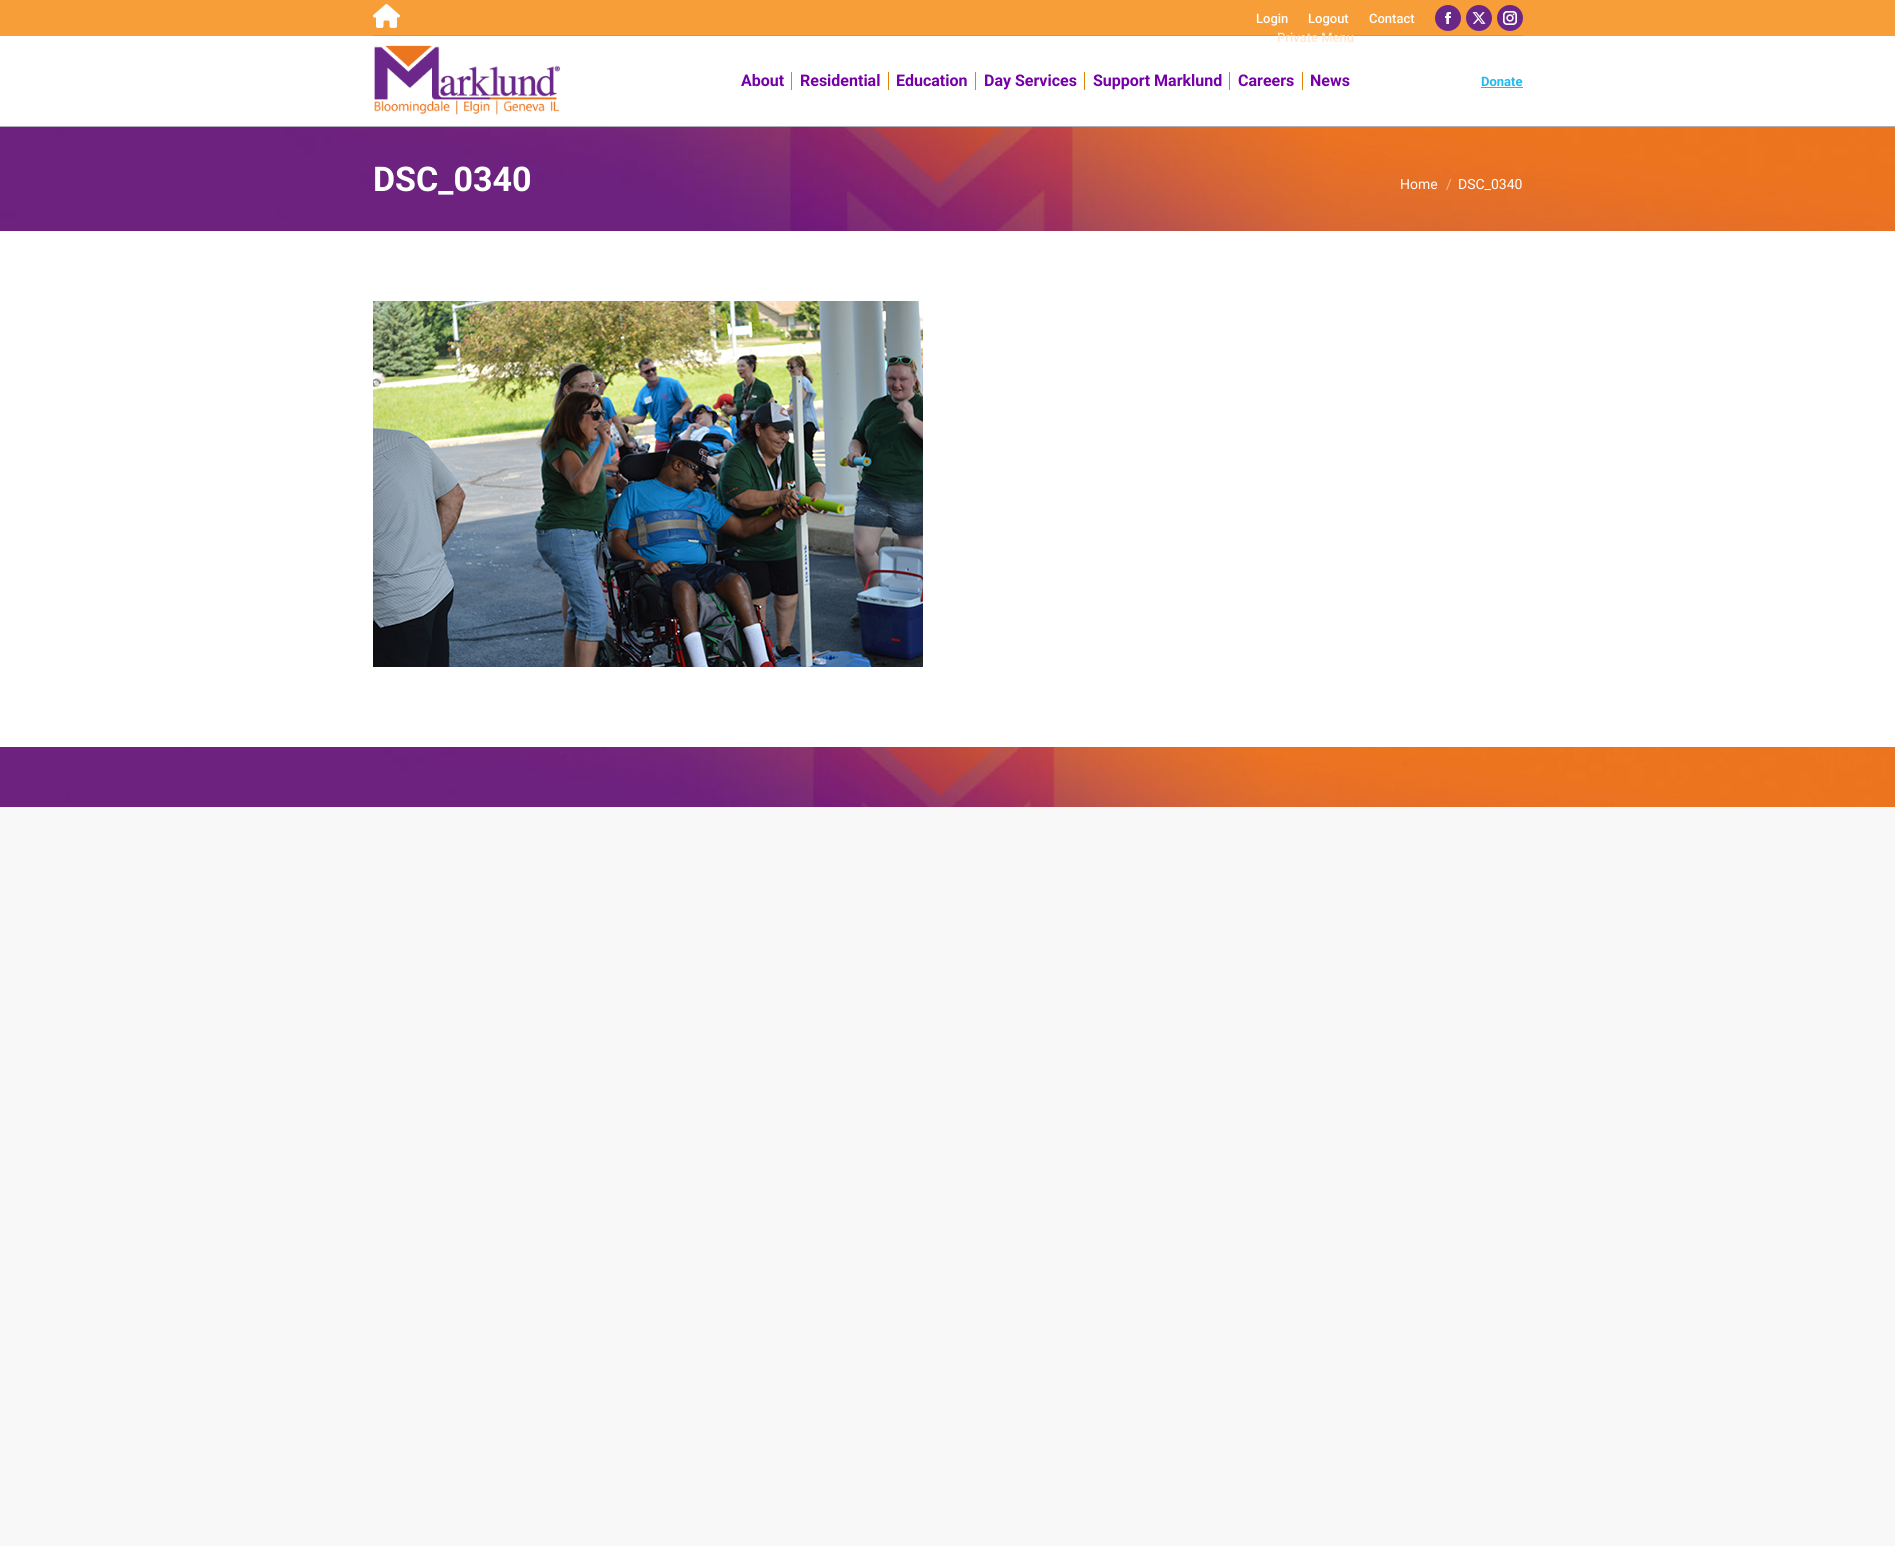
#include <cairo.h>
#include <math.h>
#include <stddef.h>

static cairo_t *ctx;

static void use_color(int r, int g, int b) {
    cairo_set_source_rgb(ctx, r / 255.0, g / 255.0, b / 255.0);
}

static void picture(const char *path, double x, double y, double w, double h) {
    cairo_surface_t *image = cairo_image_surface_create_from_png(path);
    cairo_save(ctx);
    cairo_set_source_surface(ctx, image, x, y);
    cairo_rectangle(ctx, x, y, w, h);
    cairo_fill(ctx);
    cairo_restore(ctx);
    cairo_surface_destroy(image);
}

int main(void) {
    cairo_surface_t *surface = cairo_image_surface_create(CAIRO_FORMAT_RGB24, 1895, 1546);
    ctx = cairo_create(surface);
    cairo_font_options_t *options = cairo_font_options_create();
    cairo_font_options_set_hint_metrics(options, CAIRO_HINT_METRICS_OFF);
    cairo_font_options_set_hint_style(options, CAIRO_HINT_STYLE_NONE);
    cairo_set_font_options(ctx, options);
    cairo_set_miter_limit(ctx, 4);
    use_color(248, 248, 249);
    cairo_paint(ctx);
    use_color(255, 255, 255);
    cairo_rectangle(ctx, 0, 36, 1895, 711);
    cairo_fill(ctx);
    use_color(173, 176, 182);
    cairo_rectangle(ctx, 0, 126, 1895, 1);
    cairo_fill(ctx);
    use_color(247, 158, 56);
    cairo_rectangle(ctx, 0, 0, 1895, 36);
    cairo_fill(ctx);
    picture("img1.png", 373, 4, 27, 24);
    cairo_select_font_face(ctx, "Roboto Medium", CAIRO_FONT_SLANT_NORMAL, CAIRO_FONT_WEIGHT_NORMAL);
    cairo_set_font_size(ctx, 13);
    use_color(255, 255, 255);
    cairo_move_to(ctx, 1256, 23);
    cairo_show_text(ctx, "Login");
    cairo_move_to(ctx, 1308, 23);
    cairo_show_text(ctx, "Logout");
    cairo_move_to(ctx, 1369, 23);
    cairo_show_text(ctx, "Contact");
    use_color(253, 232, 207);
    cairo_move_to(ctx, 1277, 42);
    cairo_show_text(ctx, "Private Menu");
    use_color(106, 39, 135);
    cairo_new_path(ctx);
    cairo_arc(ctx, 1448, 18, 13, 0, 2 * M_PI);
    cairo_fill(ctx);
    picture("img2.png", 1445, 12, 6, 12);
    cairo_arc(ctx, 1479, 18, 13, 0, 2 * M_PI);
    cairo_fill(ctx);
    picture("img3.png", 1472, 12, 14, 12);
    cairo_arc(ctx, 1510, 18, 13, 0, 2 * M_PI);
    cairo_fill(ctx);
    picture("img4.png", 1503, 11, 14, 14);
    cairo_set_source_rgba(ctx, 0.2, 0.2, 0.2, 0.11);
    cairo_rectangle(ctx, 373, 35, 1150, 1);
    cairo_fill(ctx);
    picture("img5.png", 374, 45, 187, 70);
    cairo_select_font_face(ctx, "Roboto", CAIRO_FONT_SLANT_NORMAL, CAIRO_FONT_WEIGHT_BOLD);
    cairo_set_font_size(ctx, 16);
    use_color(117, 0, 168);
    cairo_move_to(ctx, 741, 86);
    cairo_show_text(ctx, "About");
    use_color(221, 134, 4);
    cairo_rectangle(ctx, 791, 72, 1, 18);
    cairo_fill(ctx);
    use_color(117, 0, 168);
    cairo_move_to(ctx, 800, 86);
    cairo_show_text(ctx, "Residential");
    use_color(221, 134, 4);
    cairo_rectangle(ctx, 888, 72, 1, 18);
    cairo_fill(ctx);
    use_color(117, 0, 168);
    cairo_move_to(ctx, 896, 86);
    cairo_show_text(ctx, "Education");
    use_color(221, 134, 4);
    cairo_rectangle(ctx, 975, 72, 1, 18);
    cairo_fill(ctx);
    use_color(117, 0, 168);
    cairo_move_to(ctx, 984, 86);
    cairo_show_text(ctx, "Day Services");
    use_color(221, 134, 4);
    cairo_rectangle(ctx, 1084, 72, 1, 18);
    cairo_fill(ctx);
    use_color(117, 0, 168);
    cairo_move_to(ctx, 1093, 86);
    cairo_show_text(ctx, "Support Marklund");
    use_color(221, 134, 4);
    cairo_rectangle(ctx, 1229, 72, 1, 18);
    cairo_fill(ctx);
    use_color(117, 0, 168);
    cairo_move_to(ctx, 1238, 86);
    cairo_show_text(ctx, "Careers");
    use_color(221, 134, 4);
    cairo_rectangle(ctx, 1302, 72, 1, 18);
    cairo_fill(ctx);
    use_color(117, 0, 168);
    cairo_move_to(ctx, 1310, 86);
    cairo_show_text(ctx, "News");
    cairo_set_font_size(ctx, 13);
    use_color(30, 187, 240);
    cairo_move_to(ctx, 1481, 86);
    cairo_show_text(ctx, "Donate");
    cairo_rectangle(ctx, 1481, 87, 42, 1);
    cairo_fill(ctx);
    picture("img6.png", 0, 127, 1895, 104);
    cairo_set_font_size(ctx, 34);
    use_color(255, 255, 255);
    cairo_move_to(ctx, 373, 191);
    cairo_show_text(ctx, "DSC_0340");
    cairo_select_font_face(ctx, "Roboto", CAIRO_FONT_SLANT_NORMAL, CAIRO_FONT_WEIGHT_NORMAL);
    cairo_set_font_size(ctx, 14);
    cairo_move_to(ctx, 1400, 189);
    cairo_show_text(ctx, "Home");
    use_color(243, 183, 147);
    cairo_move_to(ctx, 1446, 189);
    cairo_show_text(ctx, "/");
    use_color(255, 255, 255);
    cairo_move_to(ctx, 1458, 189);
    cairo_show_text(ctx, "DSC_0340");
    picture("img7.png", 373, 301, 550, 366);
    picture("img8.png", 0, 747, 1895, 60);
    cairo_surface_write_to_png(surface, "result.png");
    cairo_font_options_destroy(options);
    cairo_destroy(ctx);
    cairo_surface_destroy(surface);
    return 0;
}
